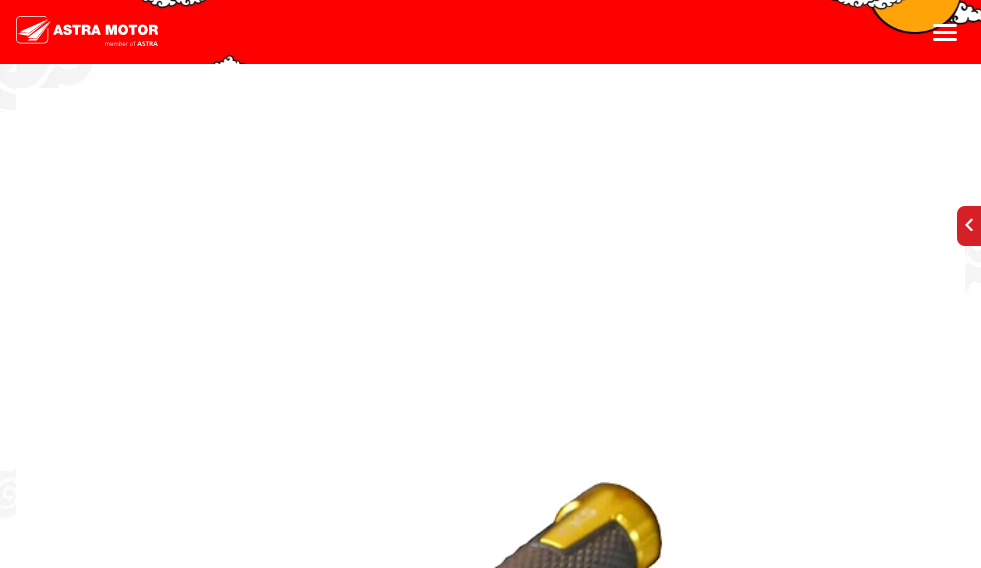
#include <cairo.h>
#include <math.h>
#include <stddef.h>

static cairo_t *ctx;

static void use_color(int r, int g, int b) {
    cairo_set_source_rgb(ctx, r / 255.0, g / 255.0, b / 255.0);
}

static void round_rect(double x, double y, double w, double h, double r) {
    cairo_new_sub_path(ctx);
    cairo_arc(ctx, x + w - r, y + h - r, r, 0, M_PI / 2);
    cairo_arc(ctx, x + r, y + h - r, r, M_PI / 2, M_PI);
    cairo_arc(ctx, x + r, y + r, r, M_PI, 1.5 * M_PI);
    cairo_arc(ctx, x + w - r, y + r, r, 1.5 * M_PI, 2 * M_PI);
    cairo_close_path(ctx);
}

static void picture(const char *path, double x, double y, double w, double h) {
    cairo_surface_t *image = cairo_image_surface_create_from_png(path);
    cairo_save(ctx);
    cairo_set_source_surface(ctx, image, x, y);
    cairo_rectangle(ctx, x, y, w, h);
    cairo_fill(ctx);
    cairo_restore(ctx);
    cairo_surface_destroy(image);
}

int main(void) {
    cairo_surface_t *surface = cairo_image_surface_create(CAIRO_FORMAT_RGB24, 981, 568);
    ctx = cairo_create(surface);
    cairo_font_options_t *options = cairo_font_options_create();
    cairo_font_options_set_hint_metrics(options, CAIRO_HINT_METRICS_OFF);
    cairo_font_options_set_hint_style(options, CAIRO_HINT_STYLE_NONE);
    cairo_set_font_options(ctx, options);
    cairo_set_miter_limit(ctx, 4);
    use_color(255, 255, 255);
    cairo_paint(ctx);
    use_color(254, 0, 0);
    cairo_rectangle(ctx, 0, 0, 981, 64);
    cairo_fill(ctx);
    picture("img1.png", 139, 0, 842, 64);
    picture("img2.png", 16, 16, 142, 30);
    use_color(255, 255, 255);
    round_rect(933, 31, 24, 3, 1.5);
    cairo_fill(ctx);
    round_rect(933, 24, 24, 3, 1.5);
    cairo_fill(ctx);
    round_rect(933, 38, 24, 3, 1.5);
    cairo_fill(ctx);
    picture("img4.png", 0, 64, 127, 466);
    cairo_rectangle(ctx, 16, 88, 101, 442);
    cairo_fill(ctx);
    picture("img3.png", 493, 479, 177, 89);
    picture("img5.png", 965, 198, 16, 110);
    use_color(214, 32, 39);
    cairo_new_path(ctx);
    cairo_move_to(ctx, 965, 206);
    cairo_line_to(ctx, 981, 206);
    cairo_line_to(ctx, 981, 246);
    cairo_line_to(ctx, 965, 246);
    cairo_curve_to(ctx, 960.5, 246, 957, 242.5, 957, 238);
    cairo_line_to(ctx, 957, 214);
    cairo_curve_to(ctx, 957, 209.5, 960.5, 206, 965, 206);
    cairo_close_path(ctx);
    cairo_fill(ctx);
    picture("img6.png", 965, 218, 8, 13);
    cairo_surface_write_to_png(surface, "result.png");
    cairo_font_options_destroy(options);
    cairo_destroy(ctx);
    cairo_surface_destroy(surface);
    return 0;
}
